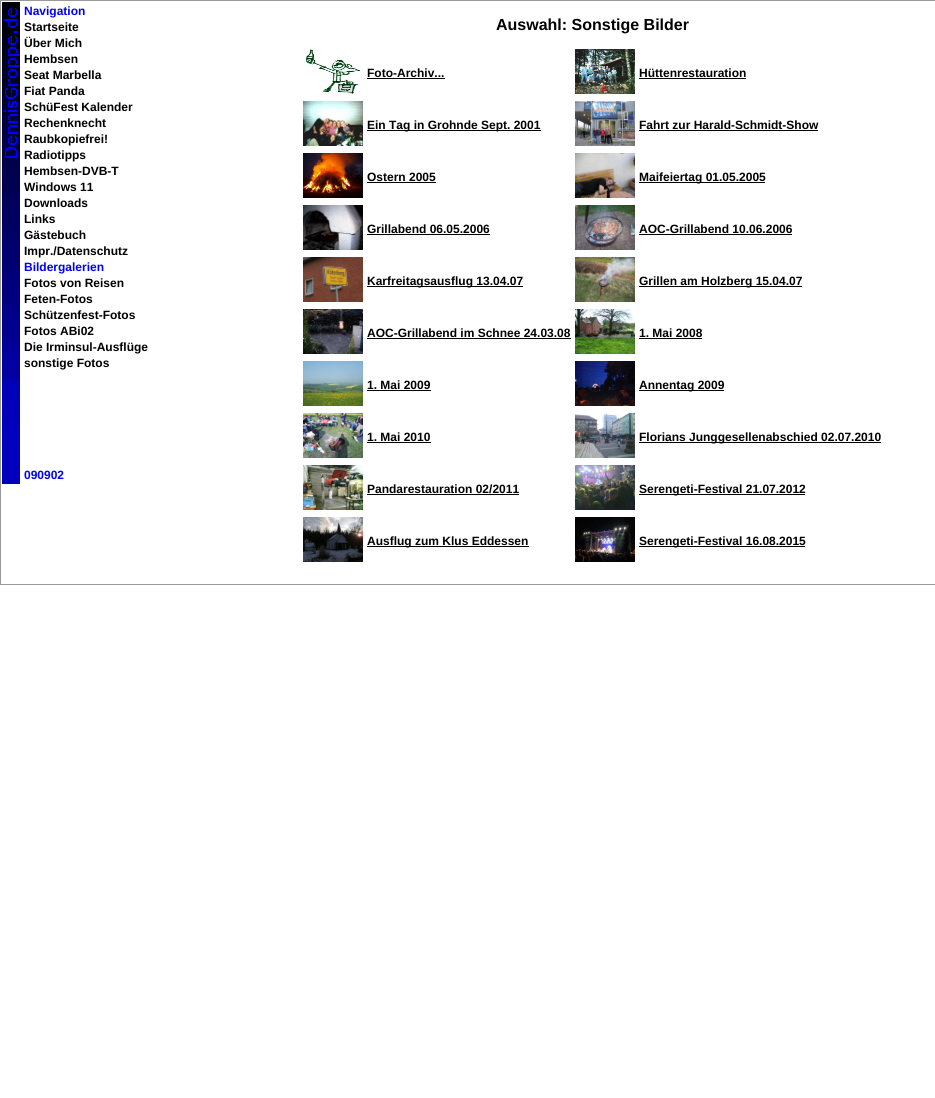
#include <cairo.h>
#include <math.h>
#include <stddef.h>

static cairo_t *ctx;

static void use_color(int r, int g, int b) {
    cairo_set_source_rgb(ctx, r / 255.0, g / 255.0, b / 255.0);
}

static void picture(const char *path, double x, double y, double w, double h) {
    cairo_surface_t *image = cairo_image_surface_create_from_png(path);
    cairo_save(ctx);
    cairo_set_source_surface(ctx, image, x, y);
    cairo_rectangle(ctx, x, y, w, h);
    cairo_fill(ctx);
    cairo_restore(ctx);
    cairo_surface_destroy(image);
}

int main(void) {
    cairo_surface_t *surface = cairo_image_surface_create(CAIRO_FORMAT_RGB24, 935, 1098);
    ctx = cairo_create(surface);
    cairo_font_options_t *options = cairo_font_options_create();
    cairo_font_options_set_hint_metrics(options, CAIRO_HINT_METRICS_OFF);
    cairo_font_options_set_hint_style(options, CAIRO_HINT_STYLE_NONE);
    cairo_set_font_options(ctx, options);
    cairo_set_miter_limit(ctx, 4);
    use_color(255, 255, 255);
    cairo_paint(ctx);
    cairo_rectangle(ctx, 0.5, 0.5, 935, 584);
    use_color(153, 153, 153);
    cairo_set_line_width(ctx, 1);
    cairo_stroke(ctx);
    picture("img1.png", 2, 2, 18, 482);
    cairo_select_font_face(ctx, "Liberation Sans", CAIRO_FONT_SLANT_NORMAL, CAIRO_FONT_WEIGHT_BOLD);
    cairo_set_font_size(ctx, 12);
    use_color(0, 0, 255);
    cairo_move_to(ctx, 24, 15);
    cairo_show_text(ctx, "Navigation");
    use_color(0, 0, 0);
    cairo_move_to(ctx, 24, 31);
    cairo_show_text(ctx, "Startseite");
    cairo_move_to(ctx, 24, 47);
    cairo_show_text(ctx, "Über Mich");
    cairo_move_to(ctx, 24, 63);
    cairo_show_text(ctx, "Hembsen");
    cairo_move_to(ctx, 24, 79);
    cairo_show_text(ctx, "Seat Marbella");
    cairo_move_to(ctx, 24, 95);
    cairo_show_text(ctx, "Fiat Panda");
    cairo_move_to(ctx, 24, 111);
    cairo_show_text(ctx, "SchüFest Kalender");
    cairo_move_to(ctx, 24, 127);
    cairo_show_text(ctx, "Rechenknecht");
    cairo_move_to(ctx, 24, 143);
    cairo_show_text(ctx, "Raubkopiefrei!");
    cairo_move_to(ctx, 24, 159);
    cairo_show_text(ctx, "Radiotipps");
    cairo_move_to(ctx, 24, 175);
    cairo_show_text(ctx, "Hembsen-DVB-T");
    cairo_move_to(ctx, 24, 191);
    cairo_show_text(ctx, "Windows 11");
    cairo_move_to(ctx, 24, 207);
    cairo_show_text(ctx, "Downloads");
    cairo_move_to(ctx, 24, 223);
    cairo_show_text(ctx, "Links");
    cairo_move_to(ctx, 24, 239);
    cairo_show_text(ctx, "Gästebuch");
    cairo_move_to(ctx, 24, 255);
    cairo_show_text(ctx, "Impr./Datenschutz");
    use_color(0, 0, 255);
    cairo_move_to(ctx, 24, 271);
    cairo_show_text(ctx, "Bildergalerien");
    use_color(0, 0, 0);
    cairo_move_to(ctx, 24, 287);
    cairo_show_text(ctx, "Fotos von Reisen");
    cairo_move_to(ctx, 24, 303);
    cairo_show_text(ctx, "Feten-Fotos");
    cairo_move_to(ctx, 24, 319);
    cairo_show_text(ctx, "Schützenfest-Fotos");
    cairo_move_to(ctx, 24, 335);
    cairo_show_text(ctx, "Fotos ABi02");
    cairo_move_to(ctx, 24, 351);
    cairo_show_text(ctx, "Die Irminsul-Ausflüge");
    cairo_move_to(ctx, 24, 367);
    cairo_show_text(ctx, "sonstige Fotos");
    use_color(0, 0, 255);
    cairo_move_to(ctx, 24, 479);
    cairo_show_text(ctx, "090902");
    cairo_set_font_size(ctx, 16);
    use_color(0, 0, 0);
    cairo_move_to(ctx, 496, 30);
    cairo_show_text(ctx, "Auswahl: Sonstige Bilder");
    picture("img2.png", 304, 49, 57, 45);
    cairo_set_font_size(ctx, 12);
    cairo_move_to(ctx, 367, 77);
    cairo_show_text(ctx, "Foto-Archiv...");
    cairo_rectangle(ctx, 367, 78, 78, 1);
    cairo_fill(ctx);
    picture("img3.png", 575, 49, 60, 45);
    cairo_move_to(ctx, 639, 77);
    cairo_show_text(ctx, "Hüttenrestauration");
    cairo_rectangle(ctx, 639, 78, 107, 1);
    cairo_fill(ctx);
    picture("img4.png", 303, 101, 60, 45);
    cairo_rectangle(ctx, 367, 130, 174, 1);
    cairo_fill(ctx);
    cairo_move_to(ctx, 367, 129);
    cairo_show_text(ctx, "Ein Tag in Grohnde Sept. 2001");
    picture("img5.png", 575, 101, 60, 45);
    cairo_move_to(ctx, 639, 129);
    cairo_show_text(ctx, "Fahrt zur Harald-Schmidt-Show");
    cairo_rectangle(ctx, 639, 130, 179, 1);
    cairo_fill(ctx);
    picture("img6.png", 303, 153, 60, 45);
    cairo_move_to(ctx, 367, 181);
    cairo_show_text(ctx, "Ostern 2005");
    cairo_rectangle(ctx, 367, 182, 69, 1);
    cairo_fill(ctx);
    picture("img7.png", 575, 153, 60, 45);
    cairo_rectangle(ctx, 639, 182, 126, 1);
    cairo_fill(ctx);
    cairo_move_to(ctx, 639, 181);
    cairo_show_text(ctx, "Maifeiertag 01.05.2005");
    picture("img8.png", 303, 205, 60, 45);
    cairo_move_to(ctx, 367, 233);
    cairo_show_text(ctx, "Grillabend 06.05.2006");
    cairo_rectangle(ctx, 367, 234, 123, 1);
    cairo_fill(ctx);
    picture("img9.png", 575, 205, 60, 45);
    cairo_move_to(ctx, 639, 233);
    cairo_show_text(ctx, "AOC-Grillabend 10.06.2006");
    cairo_rectangle(ctx, 639, 234, 153, 1);
    cairo_fill(ctx);
    picture("img10.png", 303, 257, 60, 45);
    cairo_rectangle(ctx, 367, 286, 156, 1);
    cairo_fill(ctx);
    cairo_move_to(ctx, 367, 285);
    cairo_show_text(ctx, "Karfreitagsausflug 13.04.07");
    picture("img11.png", 575, 257, 60, 45);
    cairo_rectangle(ctx, 639, 286, 163, 1);
    cairo_fill(ctx);
    cairo_move_to(ctx, 639, 285);
    cairo_show_text(ctx, "Grillen am Holzberg 15.04.07");
    picture("img12.png", 303, 309, 60, 45);
    cairo_move_to(ctx, 367, 337);
    cairo_show_text(ctx, "AOC-Grillabend im Schnee 24.03.08");
    cairo_rectangle(ctx, 367, 338, 204, 1);
    cairo_fill(ctx);
    picture("img13.png", 575, 309, 60, 45);
    cairo_move_to(ctx, 639, 337);
    cairo_show_text(ctx, "1. Mai 2008");
    cairo_rectangle(ctx, 639, 338, 63, 1);
    cairo_fill(ctx);
    picture("img14.png", 303, 361, 60, 45);
    cairo_move_to(ctx, 367, 389);
    cairo_show_text(ctx, "1. Mai 2009");
    cairo_rectangle(ctx, 367, 390, 64, 1);
    cairo_fill(ctx);
    picture("img15.png", 575, 361, 60, 45);
    cairo_rectangle(ctx, 639, 390, 85, 1);
    cairo_fill(ctx);
    cairo_move_to(ctx, 639, 389);
    cairo_show_text(ctx, "Annentag 2009");
    picture("img16.png", 303, 413, 60, 45);
    cairo_move_to(ctx, 367, 441);
    cairo_show_text(ctx, "1. Mai 2010");
    cairo_rectangle(ctx, 367, 442, 64, 1);
    cairo_fill(ctx);
    picture("img17.png", 575, 413, 60, 45);
    cairo_rectangle(ctx, 639, 442, 242, 1);
    cairo_fill(ctx);
    cairo_move_to(ctx, 639, 441);
    cairo_show_text(ctx, "Florians Junggesellenabschied 02.07.2010");
    picture("img18.png", 303, 465, 60, 45);
    cairo_move_to(ctx, 367, 493);
    cairo_show_text(ctx, "Pandarestauration 02/2011");
    cairo_rectangle(ctx, 367, 494, 152, 1);
    cairo_fill(ctx);
    picture("img19.png", 575, 465, 60, 45);
    cairo_rectangle(ctx, 639, 494, 166, 1);
    cairo_fill(ctx);
    cairo_move_to(ctx, 639, 493);
    cairo_show_text(ctx, "Serengeti-Festival 21.07.2012");
    picture("img20.png", 303, 517, 60, 45);
    cairo_rectangle(ctx, 367, 546, 162, 1);
    cairo_fill(ctx);
    cairo_move_to(ctx, 367, 545);
    cairo_show_text(ctx, "Ausflug zum Klus Eddessen");
    picture("img21.png", 575, 517, 60, 45);
    cairo_rectangle(ctx, 639, 546, 166, 1);
    cairo_fill(ctx);
    cairo_move_to(ctx, 639, 545);
    cairo_show_text(ctx, "Serengeti-Festival 16.08.2015");
    cairo_surface_write_to_png(surface, "result.png");
    cairo_font_options_destroy(options);
    cairo_destroy(ctx);
    cairo_surface_destroy(surface);
    return 0;
}
